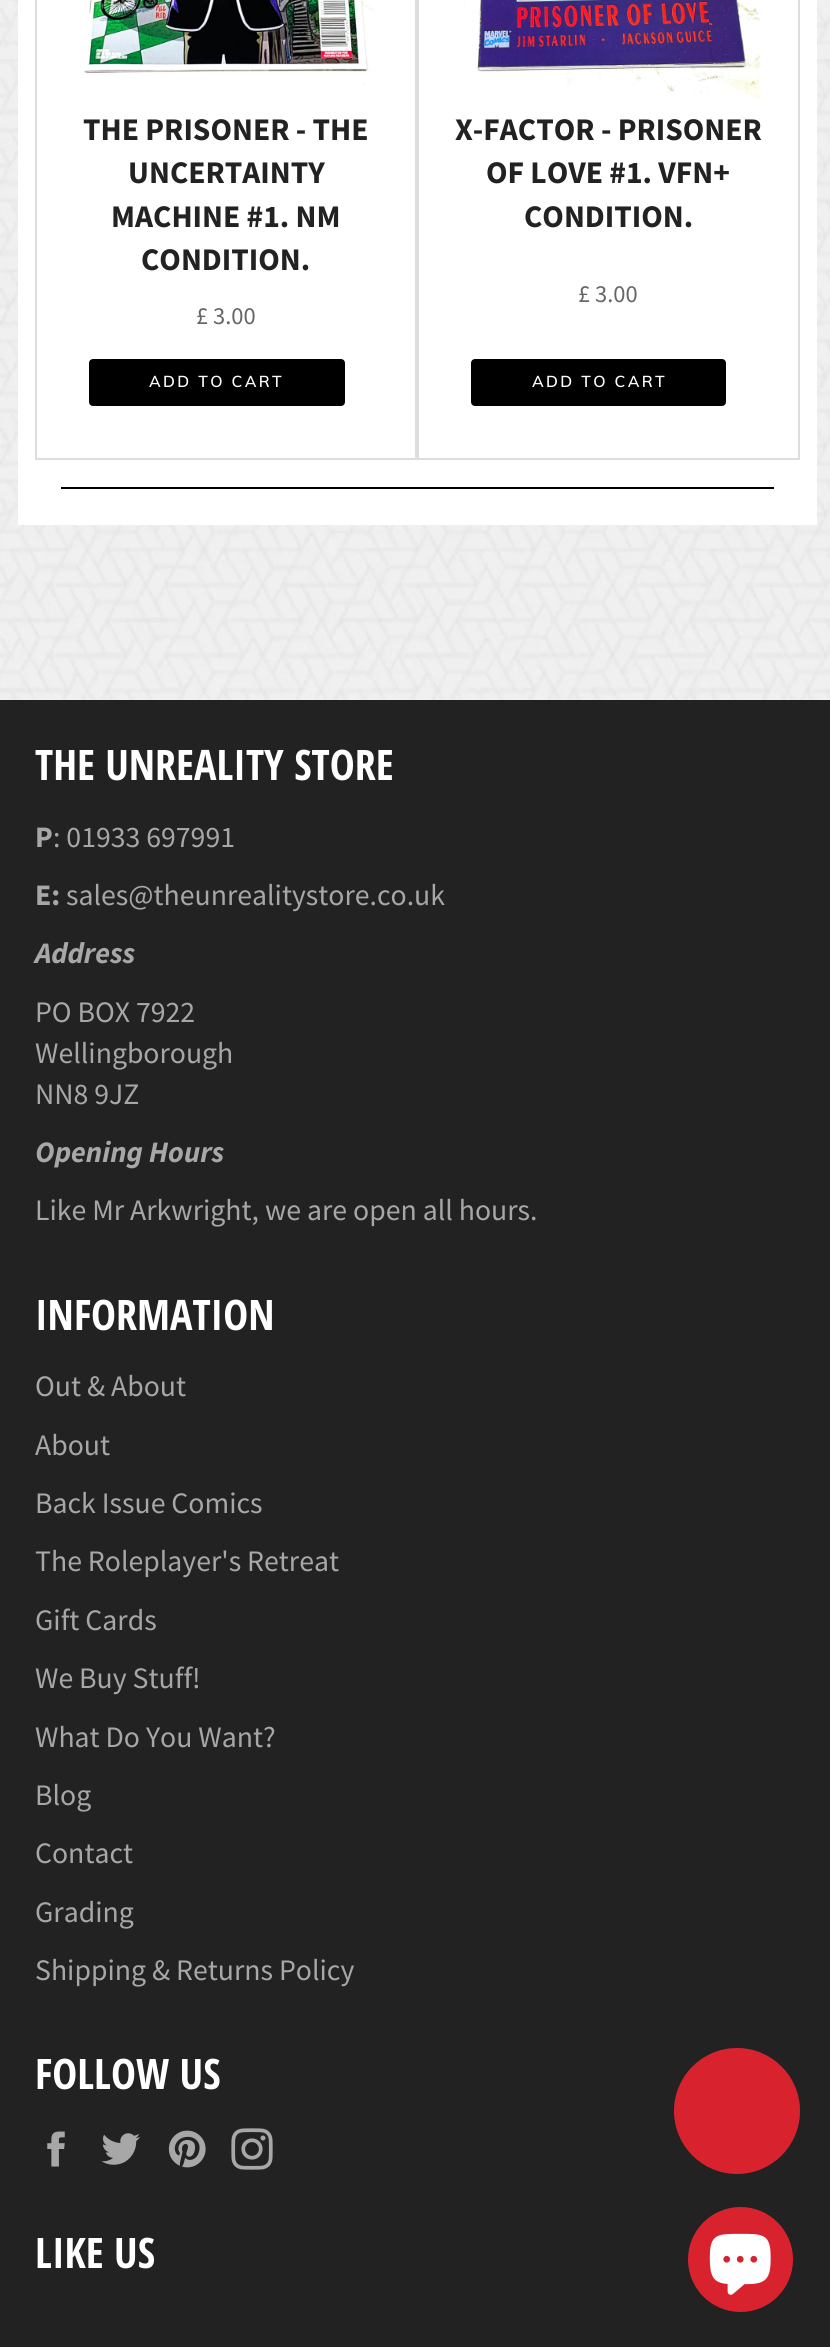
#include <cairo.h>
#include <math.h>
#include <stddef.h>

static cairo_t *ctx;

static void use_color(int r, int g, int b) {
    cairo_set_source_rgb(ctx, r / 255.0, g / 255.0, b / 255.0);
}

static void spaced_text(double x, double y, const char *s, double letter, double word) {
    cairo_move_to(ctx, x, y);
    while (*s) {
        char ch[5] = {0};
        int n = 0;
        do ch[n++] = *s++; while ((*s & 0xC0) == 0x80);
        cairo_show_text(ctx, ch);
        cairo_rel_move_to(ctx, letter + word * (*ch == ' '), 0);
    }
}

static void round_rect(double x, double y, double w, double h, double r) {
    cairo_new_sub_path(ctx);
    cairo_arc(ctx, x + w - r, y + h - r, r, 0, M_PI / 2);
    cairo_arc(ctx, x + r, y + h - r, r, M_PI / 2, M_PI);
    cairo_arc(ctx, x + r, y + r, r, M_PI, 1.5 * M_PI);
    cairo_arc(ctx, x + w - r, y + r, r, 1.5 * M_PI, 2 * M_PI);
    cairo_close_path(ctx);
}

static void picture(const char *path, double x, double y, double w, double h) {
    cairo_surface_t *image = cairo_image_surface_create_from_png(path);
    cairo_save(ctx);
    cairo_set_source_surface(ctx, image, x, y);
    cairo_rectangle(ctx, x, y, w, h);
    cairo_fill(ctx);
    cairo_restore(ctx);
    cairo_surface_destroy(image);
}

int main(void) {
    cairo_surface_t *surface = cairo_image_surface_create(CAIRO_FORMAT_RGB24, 830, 2347);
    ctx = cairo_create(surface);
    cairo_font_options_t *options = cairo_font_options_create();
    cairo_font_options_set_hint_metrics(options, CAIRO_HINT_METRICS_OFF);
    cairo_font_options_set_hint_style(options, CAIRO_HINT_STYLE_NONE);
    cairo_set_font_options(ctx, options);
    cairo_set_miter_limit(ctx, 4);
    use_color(255, 255, 255);
    cairo_paint(ctx);
    picture("img1.png", 0, 0, 830, 700);
    use_color(255, 255, 255);
    cairo_rectangle(ctx, 18, 0, 799, 525);
    cairo_fill(ctx);
    cairo_rectangle(ctx, 36, -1, 380, 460);
    use_color(221, 221, 221);
    cairo_stroke(ctx);
    picture("img2.png", 84, 0, 292, 85);
    cairo_select_font_face(ctx, "Source Sans Pro", CAIRO_FONT_SLANT_NORMAL, CAIRO_FONT_WEIGHT_BOLD);
    cairo_set_font_size(ctx, 31.5);
    use_color(34, 34, 34);
    cairo_move_to(ctx, 83, 140);
    cairo_show_text(ctx, "THE PRISONER - THE");
    cairo_move_to(ctx, 128, 183);
    cairo_show_text(ctx, "UNCERTAINTY");
    cairo_move_to(ctx, 111, 227);
    cairo_show_text(ctx, "MACHINE #1. NM");
    cairo_move_to(ctx, 141, 270);
    cairo_show_text(ctx, "CONDITION.");
    cairo_select_font_face(ctx, "Source Sans Pro", CAIRO_FONT_SLANT_NORMAL, CAIRO_FONT_WEIGHT_NORMAL);
    cairo_set_font_size(ctx, 24.5);
    use_color(102, 102, 102);
    cairo_move_to(ctx, 196, 324);
    cairo_show_text(ctx, "£ 3.00");
    use_color(0, 0, 0);
    round_rect(90, 360, 254, 45, 3);
    cairo_fill_preserve(ctx);
    cairo_stroke(ctx);
    cairo_select_font_face(ctx, "Muli SemiBold", CAIRO_FONT_SLANT_NORMAL, CAIRO_FONT_WEIGHT_NORMAL);
    cairo_set_font_size(ctx, 15.75);
    use_color(255, 255, 255);
    spaced_text(149, 387, "ADD TO CART", 2.4, 0);
    cairo_rectangle(ctx, 418, -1, 381, 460);
    use_color(221, 221, 221);
    cairo_stroke(ctx);
    picture("img3.png", 464, 0, 296, 100);
    cairo_select_font_face(ctx, "Source Sans Pro", CAIRO_FONT_SLANT_NORMAL, CAIRO_FONT_WEIGHT_BOLD);
    cairo_set_font_size(ctx, 31.5);
    use_color(34, 34, 34);
    cairo_move_to(ctx, 455, 140);
    cairo_show_text(ctx, "X-FACTOR - PRISONER");
    cairo_move_to(ctx, 486, 183);
    cairo_show_text(ctx, "OF LOVE #1. VFN+");
    cairo_move_to(ctx, 524, 227);
    cairo_show_text(ctx, "CONDITION.");
    cairo_select_font_face(ctx, "Source Sans Pro", CAIRO_FONT_SLANT_NORMAL, CAIRO_FONT_WEIGHT_NORMAL);
    cairo_set_font_size(ctx, 24.5);
    use_color(102, 102, 102);
    cairo_move_to(ctx, 578, 302);
    cairo_show_text(ctx, "£ 3.00");
    use_color(0, 0, 0);
    round_rect(472, 360, 253, 45, 3);
    cairo_fill_preserve(ctx);
    cairo_stroke(ctx);
    cairo_select_font_face(ctx, "Muli SemiBold", CAIRO_FONT_SLANT_NORMAL, CAIRO_FONT_WEIGHT_NORMAL);
    cairo_set_font_size(ctx, 15.75);
    use_color(255, 255, 255);
    spaced_text(532, 387, "ADD TO CART", 2.4, 0);
    use_color(0, 0, 0);
    cairo_rectangle(ctx, 61, 487, 713, 2);
    cairo_fill(ctx);
    use_color(34, 34, 34);
    cairo_rectangle(ctx, 0, 700, 830, 1647);
    cairo_fill(ctx);
    use_color(216, 35, 47);
    cairo_arc(ctx, 737, 2111, 62, 0, 2 * M_PI);
    cairo_fill_preserve(ctx);
    cairo_stroke(ctx);
    cairo_select_font_face(ctx, "Open Sans Condensed", CAIRO_FONT_SLANT_NORMAL, CAIRO_FONT_WEIGHT_BOLD);
    cairo_set_font_size(ctx, 42);
    use_color(255, 255, 255);
    cairo_move_to(ctx, 35, 780);
    cairo_show_text(ctx, "THE UNREALITY STORE");
    cairo_select_font_face(ctx, "Source Sans Pro", CAIRO_FONT_SLANT_NORMAL, CAIRO_FONT_WEIGHT_BOLD);
    cairo_set_font_size(ctx, 29.75);
    use_color(167, 167, 167);
    cairo_move_to(ctx, 35, 847);
    cairo_show_text(ctx, "P");
    cairo_select_font_face(ctx, "Source Sans Pro", CAIRO_FONT_SLANT_NORMAL, CAIRO_FONT_WEIGHT_NORMAL);
    cairo_move_to(ctx, 53, 847);
    cairo_show_text(ctx, ": 01933 697991");
    cairo_select_font_face(ctx, "Source Sans Pro", CAIRO_FONT_SLANT_NORMAL, CAIRO_FONT_WEIGHT_BOLD);
    cairo_move_to(ctx, 35, 905);
    cairo_show_text(ctx, "E:");
    cairo_select_font_face(ctx, "Source Sans Pro", CAIRO_FONT_SLANT_NORMAL, CAIRO_FONT_WEIGHT_NORMAL);
    cairo_move_to(ctx, 66, 905);
    cairo_show_text(ctx, "sales@theunrealitystore.co.uk");
    cairo_select_font_face(ctx, "Source Sans Pro", CAIRO_FONT_SLANT_ITALIC, CAIRO_FONT_WEIGHT_BOLD);
    cairo_move_to(ctx, 35, 963);
    cairo_show_text(ctx, "Address");
    cairo_select_font_face(ctx, "Source Sans Pro", CAIRO_FONT_SLANT_NORMAL, CAIRO_FONT_WEIGHT_NORMAL);
    cairo_move_to(ctx, 35, 1022);
    cairo_show_text(ctx, "PO BOX 7922");
    cairo_move_to(ctx, 35, 1063);
    cairo_show_text(ctx, "Wellingborough");
    cairo_move_to(ctx, 35, 1104);
    cairo_show_text(ctx, "NN8 9JZ");
    cairo_select_font_face(ctx, "Source Sans Pro", CAIRO_FONT_SLANT_ITALIC, CAIRO_FONT_WEIGHT_BOLD);
    cairo_move_to(ctx, 35, 1162);
    cairo_show_text(ctx, "Opening Hours");
    cairo_select_font_face(ctx, "Source Sans Pro", CAIRO_FONT_SLANT_NORMAL, CAIRO_FONT_WEIGHT_NORMAL);
    cairo_move_to(ctx, 35, 1220);
    cairo_show_text(ctx, "Like Mr Arkwright, we are open all hours.");
    cairo_select_font_face(ctx, "Open Sans Condensed", CAIRO_FONT_SLANT_NORMAL, CAIRO_FONT_WEIGHT_BOLD);
    cairo_set_font_size(ctx, 42);
    use_color(255, 255, 255);
    cairo_move_to(ctx, 35, 1330);
    cairo_show_text(ctx, "INFORMATION");
    cairo_select_font_face(ctx, "Source Sans Pro", CAIRO_FONT_SLANT_NORMAL, CAIRO_FONT_WEIGHT_NORMAL);
    cairo_set_font_size(ctx, 29.75);
    use_color(167, 167, 167);
    cairo_move_to(ctx, 35, 1396);
    cairo_show_text(ctx, "Out & About");
    cairo_move_to(ctx, 35, 1455);
    cairo_show_text(ctx, "About");
    cairo_move_to(ctx, 35, 1513);
    cairo_show_text(ctx, "Back Issue Comics");
    cairo_move_to(ctx, 35, 1571);
    cairo_show_text(ctx, "The Roleplayer's Retreat");
    cairo_move_to(ctx, 35, 1630);
    cairo_show_text(ctx, "Gift Cards");
    cairo_move_to(ctx, 35, 1688);
    cairo_show_text(ctx, "We Buy Stuff!");
    cairo_move_to(ctx, 35, 1747);
    cairo_show_text(ctx, "What Do You Want?");
    cairo_move_to(ctx, 35, 1805);
    cairo_show_text(ctx, "Blog");
    cairo_move_to(ctx, 35, 1863);
    cairo_show_text(ctx, "Contact");
    cairo_move_to(ctx, 35, 1922);
    cairo_show_text(ctx, "Grading");
    cairo_move_to(ctx, 35, 1980);
    cairo_show_text(ctx, "Shipping & Returns Policy");
    cairo_select_font_face(ctx, "Open Sans Condensed", CAIRO_FONT_SLANT_NORMAL, CAIRO_FONT_WEIGHT_BOLD);
    cairo_set_font_size(ctx, 42);
    use_color(255, 255, 255);
    cairo_move_to(ctx, 35, 2089);
    cairo_show_text(ctx, "FOLLOW US");
    picture("img4.png", 47, 2131, 18, 36);
    picture("img5.png", 101, 2133, 39, 32);
    picture("img6.png", 168, 2130, 38, 38);
    picture("img7.png", 231, 2128, 42, 42);
    cairo_move_to(ctx, 35, 2268);
    cairo_show_text(ctx, "LIKE US");
    use_color(216, 35, 47);
    cairo_new_path(ctx);
    cairo_arc(ctx, 740.5, 2259.5, 52.5, 0, 2 * M_PI);
    cairo_fill(ctx);
    picture("img8.png", 709, 2233, 62, 62);
    cairo_surface_write_to_png(surface, "result.png");
    cairo_font_options_destroy(options);
    cairo_destroy(ctx);
    cairo_surface_destroy(surface);
    return 0;
}
